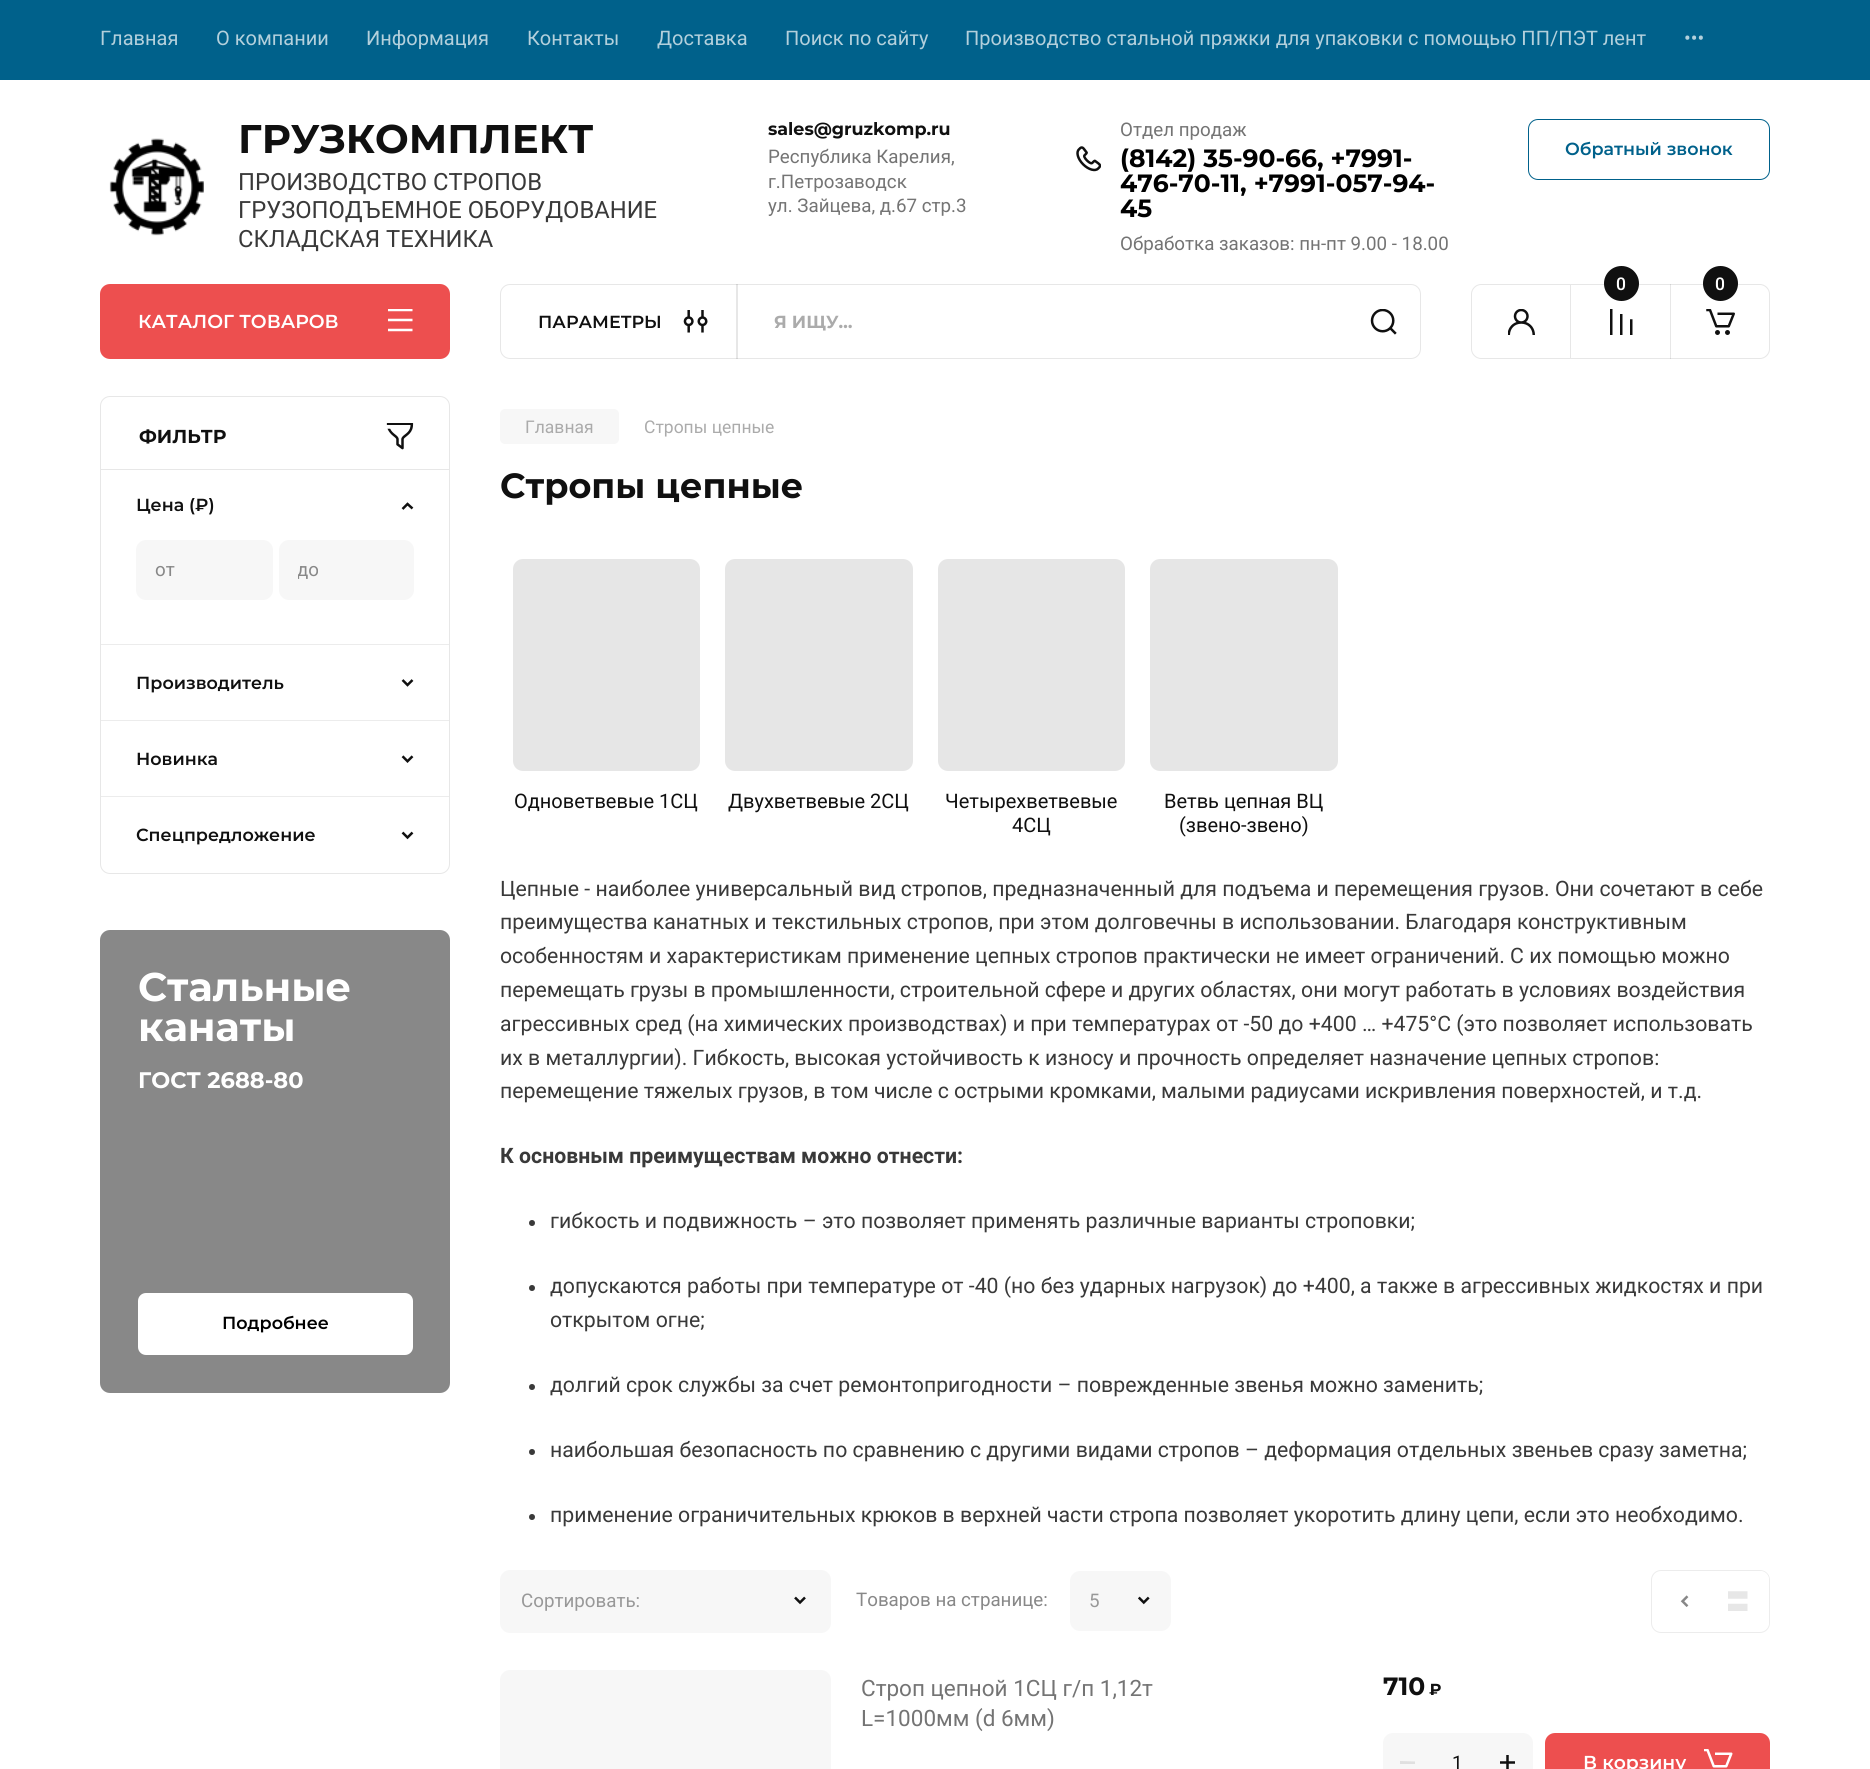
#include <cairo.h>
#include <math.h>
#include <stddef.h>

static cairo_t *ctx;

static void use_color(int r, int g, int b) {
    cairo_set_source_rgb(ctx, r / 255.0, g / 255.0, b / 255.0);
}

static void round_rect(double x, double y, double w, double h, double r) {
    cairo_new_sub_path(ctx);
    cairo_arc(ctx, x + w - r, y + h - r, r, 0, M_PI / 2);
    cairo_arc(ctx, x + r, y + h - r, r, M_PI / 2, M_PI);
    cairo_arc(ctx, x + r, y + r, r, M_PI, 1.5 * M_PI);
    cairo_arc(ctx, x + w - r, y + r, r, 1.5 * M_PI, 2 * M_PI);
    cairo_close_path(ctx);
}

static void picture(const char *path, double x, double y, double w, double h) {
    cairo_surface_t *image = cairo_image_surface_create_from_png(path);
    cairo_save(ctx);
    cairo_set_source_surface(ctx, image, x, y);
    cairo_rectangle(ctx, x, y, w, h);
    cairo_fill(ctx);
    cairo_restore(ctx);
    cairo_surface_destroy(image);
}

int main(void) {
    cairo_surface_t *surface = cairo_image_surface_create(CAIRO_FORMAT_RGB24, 1870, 1769);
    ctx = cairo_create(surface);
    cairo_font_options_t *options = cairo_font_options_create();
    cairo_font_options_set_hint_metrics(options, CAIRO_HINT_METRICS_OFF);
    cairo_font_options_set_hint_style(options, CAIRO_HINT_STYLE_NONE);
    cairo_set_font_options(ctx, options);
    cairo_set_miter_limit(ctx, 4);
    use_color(255, 255, 255);
    cairo_paint(ctx);
    use_color(0, 97, 139);
    cairo_rectangle(ctx, 0, 0, 1870, 80);
    cairo_fill(ctx);
    cairo_select_font_face(ctx, "Roboto", CAIRO_FONT_SLANT_NORMAL, CAIRO_FONT_WEIGHT_NORMAL);
    cairo_set_font_size(ctx, 20);
    use_color(179, 208, 220);
    cairo_move_to(ctx, 100, 45);
    cairo_show_text(ctx, "Главная");
    cairo_move_to(ctx, 216, 45);
    cairo_show_text(ctx, "О компании");
    cairo_move_to(ctx, 366, 45);
    cairo_show_text(ctx, "Информация");
    cairo_move_to(ctx, 527, 45);
    cairo_show_text(ctx, "Контакты");
    cairo_move_to(ctx, 657, 45);
    cairo_show_text(ctx, "Доставка");
    cairo_move_to(ctx, 785, 45);
    cairo_show_text(ctx, "Поиск по сайту");
    cairo_move_to(ctx, 965, 45);
    cairo_show_text(ctx, "Производство стальной пряжки для упаковки с помощью ПП/ПЭТ лент");
    cairo_move_to(ctx, 1684, 45);
    cairo_show_text(ctx, "•••");
    picture("img1.png", 109, 138, 95, 98);
    cairo_select_font_face(ctx, "Montserrat", CAIRO_FONT_SLANT_NORMAL, CAIRO_FONT_WEIGHT_BOLD);
    cairo_set_font_size(ctx, 40);
    use_color(16, 16, 16);
    cairo_move_to(ctx, 238, 153);
    cairo_show_text(ctx, "ГРУЗКОМПЛЕКТ");
    cairo_select_font_face(ctx, "Roboto", CAIRO_FONT_SLANT_NORMAL, CAIRO_FONT_WEIGHT_NORMAL);
    cairo_set_font_size(ctx, 23.75);
    use_color(57, 57, 57);
    cairo_move_to(ctx, 238, 190);
    cairo_show_text(ctx, "ПРОИЗВОДСТВО СТРОПОВ");
    cairo_move_to(ctx, 238, 218);
    cairo_show_text(ctx, "ГРУЗОПОДЪЕМНОЕ ОБОРУДОВАНИЕ");
    cairo_move_to(ctx, 238, 247);
    cairo_show_text(ctx, "СКЛАДСКАЯ ТЕХНИКА");
    cairo_select_font_face(ctx, "Montserrat", CAIRO_FONT_SLANT_NORMAL, CAIRO_FONT_WEIGHT_BOLD);
    cairo_set_font_size(ctx, 17.5);
    use_color(16, 16, 16);
    cairo_move_to(ctx, 768, 135);
    cairo_show_text(ctx, "sales@gruzkomp.ru");
    cairo_select_font_face(ctx, "Roboto", CAIRO_FONT_SLANT_NORMAL, CAIRO_FONT_WEIGHT_NORMAL);
    cairo_set_font_size(ctx, 18.75);
    use_color(116, 116, 116);
    cairo_move_to(ctx, 768, 163);
    cairo_show_text(ctx, "Республика Карелия,");
    cairo_move_to(ctx, 768, 188);
    cairo_show_text(ctx, "г.Петрозаводск");
    cairo_move_to(ctx, 768, 212);
    cairo_show_text(ctx, "ул. Зайцева, д.67 стр.3");
    cairo_move_to(ctx, 1120, 136);
    cairo_show_text(ctx, "Отдел продаж");
    picture("img2.png", 1076, 146, 25, 26);
    cairo_select_font_face(ctx, "Montserrat", CAIRO_FONT_SLANT_NORMAL, CAIRO_FONT_WEIGHT_BOLD);
    cairo_set_font_size(ctx, 25);
    use_color(0, 0, 0);
    cairo_move_to(ctx, 1120, 167);
    cairo_show_text(ctx, "(8142) 35-90-66, +7991-");
    cairo_move_to(ctx, 1120, 192);
    cairo_show_text(ctx, "476-70-11, +7991-057-94-");
    cairo_move_to(ctx, 1120, 217);
    cairo_show_text(ctx, "45");
    cairo_select_font_face(ctx, "Roboto", CAIRO_FONT_SLANT_NORMAL, CAIRO_FONT_WEIGHT_NORMAL);
    cairo_set_font_size(ctx, 18.75);
    use_color(116, 116, 116);
    cairo_move_to(ctx, 1120, 250);
    cairo_show_text(ctx, "Обработка заказов: пн-пт 9.00 - 18.00");
    round_rect(1528.5, 119.5, 241, 60, 9.5);
    use_color(0, 97, 139);
    cairo_set_line_width(ctx, 1);
    cairo_stroke(ctx);
    cairo_select_font_face(ctx, "Montserrat SemiBold", CAIRO_FONT_SLANT_NORMAL, CAIRO_FONT_WEIGHT_NORMAL);
    cairo_set_font_size(ctx, 17.5);
    cairo_move_to(ctx, 1565, 155);
    cairo_show_text(ctx, "Обратный звонок");
    use_color(237, 79, 79);
    round_rect(100, 284, 350, 75, 10);
    cairo_fill(ctx);
    cairo_set_font_size(ctx, 18.75);
    use_color(255, 255, 255);
    cairo_move_to(ctx, 138, 328);
    cairo_show_text(ctx, "КАТАЛОГ ТОВАРОВ");
    picture("img3.png", 388, 309, 25, 23);
    round_rect(500.5, 284.5, 920, 74, 9.5);
    use_color(231, 231, 231);
    cairo_stroke(ctx);
    cairo_set_font_size(ctx, 17.5);
    use_color(16, 16, 16);
    cairo_move_to(ctx, 538, 328);
    cairo_show_text(ctx, "ПАРАМЕТРЫ");
    picture("img4.png", 683, 310, 25, 23);
    cairo_set_source_rgba(ctx, 0.063, 0.063, 0.063, 0.1);
    cairo_rectangle(ctx, 736, 284, 2, 75);
    cairo_fill(ctx);
    cairo_select_font_face(ctx, "Montserrat", CAIRO_FONT_SLANT_NORMAL, CAIRO_FONT_WEIGHT_BOLD);
    use_color(171, 171, 171);
    cairo_move_to(ctx, 774, 328);
    cairo_show_text(ctx, "Я ИЩУ…");
    picture("img5.png", 1370, 309, 27, 26);
    cairo_new_path(ctx);
    cairo_move_to(ctx, 1481, 284.5);
    cairo_line_to(ctx, 1570.5, 284.5);
    cairo_line_to(ctx, 1570.5, 358.5);
    cairo_line_to(ctx, 1481, 358.5);
    cairo_curve_to(ctx, 1476, 358.5, 1471.5, 354, 1471.5, 349);
    cairo_line_to(ctx, 1471.5, 294);
    cairo_curve_to(ctx, 1471.5, 289, 1476, 284.5, 1481, 284.5);
    cairo_close_path(ctx);
    use_color(231, 231, 231);
    cairo_stroke(ctx);
    picture("img6.png", 1508, 309, 27, 26);
    cairo_rectangle(ctx, 1571, 284, 100, 1);
    cairo_fill(ctx);
    cairo_rectangle(ctx, 1571, 358, 100, 1);
    cairo_fill(ctx);
    use_color(16, 16, 16);
    cairo_arc(ctx, 1621.5, 283.5, 17.5, 0, 2 * M_PI);
    cairo_fill(ctx);
    cairo_select_font_face(ctx, "Roboto Medium", CAIRO_FONT_SLANT_NORMAL, CAIRO_FONT_WEIGHT_NORMAL);
    use_color(255, 255, 255);
    cairo_move_to(ctx, 1616, 290);
    cairo_show_text(ctx, "0");
    picture("img7.png", 1610, 309, 23, 26);
    cairo_new_path(ctx);
    cairo_move_to(ctx, 1670.5, 284.5);
    cairo_line_to(ctx, 1760, 284.5);
    cairo_curve_to(ctx, 1765, 284.5, 1769.5, 289, 1769.5, 294);
    cairo_line_to(ctx, 1769.5, 349);
    cairo_curve_to(ctx, 1769.5, 354, 1765, 358.5, 1760, 358.5);
    cairo_line_to(ctx, 1670.5, 358.5);
    cairo_close_path(ctx);
    cairo_set_source_rgba(ctx, 0.063, 0.063, 0.063, 0.1);
    cairo_stroke(ctx);
    use_color(16, 16, 16);
    cairo_arc(ctx, 1720.5, 283.5, 17.5, 0, 2 * M_PI);
    cairo_fill(ctx);
    use_color(255, 255, 255);
    cairo_move_to(ctx, 1715, 290);
    cairo_show_text(ctx, "0");
    picture("img8.png", 1706, 309, 29, 26);
    round_rect(100.5, 396.5, 349, 477, 9.5);
    use_color(231, 231, 231);
    cairo_stroke(ctx);
    cairo_rectangle(ctx, 101, 469, 348, 1);
    cairo_fill(ctx);
    cairo_select_font_face(ctx, "Montserrat", CAIRO_FONT_SLANT_NORMAL, CAIRO_FONT_WEIGHT_BOLD);
    cairo_set_font_size(ctx, 18.75);
    use_color(16, 16, 16);
    cairo_move_to(ctx, 139, 443);
    cairo_show_text(ctx, "ФИЛЬТР");
    picture("img9.png", 386, 423, 28, 27);
    use_color(236, 236, 236);
    cairo_rectangle(ctx, 101, 644, 348, 1);
    cairo_fill(ctx);
    cairo_select_font_face(ctx, "Montserrat SemiBold", CAIRO_FONT_SLANT_NORMAL, CAIRO_FONT_WEIGHT_NORMAL);
    cairo_set_font_size(ctx, 17.5);
    use_color(16, 16, 16);
    cairo_move_to(ctx, 136, 511);
    cairo_show_text(ctx, "Цена (₽)");
    cairo_new_path(ctx);
    cairo_move_to(ctx, 412.5, 508.5);
    cairo_line_to(ctx, 407.5, 504);
    cairo_line_to(ctx, 402.5, 509);
    cairo_set_line_width(ctx, 2.5);
    cairo_stroke(ctx);
    use_color(247, 247, 247);
    round_rect(136, 540, 137, 60, 10);
    cairo_fill(ctx);
    cairo_select_font_face(ctx, "Roboto", CAIRO_FONT_SLANT_NORMAL, CAIRO_FONT_WEIGHT_NORMAL);
    cairo_set_font_size(ctx, 18.75);
    use_color(136, 136, 136);
    cairo_move_to(ctx, 155, 576);
    cairo_show_text(ctx, "от");
    use_color(247, 247, 247);
    round_rect(279, 540, 135, 60, 10);
    cairo_fill(ctx);
    cairo_save(ctx);
    cairo_rectangle(ctx, 298, 559, 97, 22);
    cairo_clip(ctx);
    use_color(136, 136, 136);
    cairo_move_to(ctx, 297, 576);
    cairo_show_text(ctx, "до");
    cairo_restore(ctx);
    use_color(236, 236, 236);
    cairo_rectangle(ctx, 101, 720, 348, 1);
    cairo_fill(ctx);
    cairo_select_font_face(ctx, "Montserrat SemiBold", CAIRO_FONT_SLANT_NORMAL, CAIRO_FONT_WEIGHT_NORMAL);
    cairo_set_font_size(ctx, 17.5);
    use_color(16, 16, 16);
    cairo_move_to(ctx, 136, 689);
    cairo_show_text(ctx, "Производитель");
    picture("img10.png", 401, 679, 13, 8);
    use_color(236, 236, 236);
    cairo_rectangle(ctx, 101, 796, 348, 1);
    cairo_fill(ctx);
    use_color(16, 16, 16);
    cairo_move_to(ctx, 136, 765);
    cairo_show_text(ctx, "Новинка");
    picture("img11.png", 401, 755, 13, 8);
    cairo_move_to(ctx, 136, 841);
    cairo_show_text(ctx, "Спецпредложение");
    picture("img12.png", 401, 831, 13, 9);
    use_color(136, 136, 136);
    round_rect(100, 930, 350, 463, 10);
    cairo_fill(ctx);
    cairo_select_font_face(ctx, "Montserrat", CAIRO_FONT_SLANT_NORMAL, CAIRO_FONT_WEIGHT_BOLD);
    cairo_set_font_size(ctx, 40);
    use_color(255, 255, 255);
    cairo_move_to(ctx, 138, 1001);
    cairo_show_text(ctx, "Стальные");
    cairo_move_to(ctx, 138, 1041);
    cairo_show_text(ctx, "канаты");
    cairo_set_font_size(ctx, 22.5);
    cairo_move_to(ctx, 138, 1088);
    cairo_show_text(ctx, "ГОСТ 2688-80");
    round_rect(138, 1293, 275, 62, 8);
    cairo_fill(ctx);
    cairo_select_font_face(ctx, "Montserrat SemiBold", CAIRO_FONT_SLANT_NORMAL, CAIRO_FONT_WEIGHT_NORMAL);
    cairo_set_font_size(ctx, 17.5);
    use_color(0, 0, 0);
    cairo_move_to(ctx, 222, 1329);
    cairo_show_text(ctx, "Подробнее");
    use_color(247, 247, 247);
    round_rect(500, 409, 119, 35, 5);
    cairo_fill(ctx);
    cairo_select_font_face(ctx, "Roboto", CAIRO_FONT_SLANT_NORMAL, CAIRO_FONT_WEIGHT_NORMAL);
    use_color(171, 171, 171);
    cairo_move_to(ctx, 525, 433);
    cairo_show_text(ctx, "Главная");
    cairo_move_to(ctx, 644, 433);
    cairo_show_text(ctx, "Стропы цепные");
    cairo_select_font_face(ctx, "Montserrat", CAIRO_FONT_SLANT_NORMAL, CAIRO_FONT_WEIGHT_BOLD);
    cairo_set_font_size(ctx, 35);
    use_color(16, 16, 16);
    cairo_move_to(ctx, 500, 498);
    cairo_show_text(ctx, "Стропы цепные");
    use_color(230, 230, 230);
    round_rect(513, 559, 187, 212, 10);
    cairo_fill(ctx);
    cairo_select_font_face(ctx, "Roboto", CAIRO_FONT_SLANT_NORMAL, CAIRO_FONT_WEIGHT_NORMAL);
    cairo_set_font_size(ctx, 20);
    use_color(16, 16, 16);
    cairo_move_to(ctx, 514, 808);
    cairo_show_text(ctx, "Одноветвевые 1СЦ");
    use_color(230, 230, 230);
    round_rect(725, 559, 188, 212, 10);
    cairo_fill(ctx);
    use_color(16, 16, 16);
    cairo_move_to(ctx, 728, 808);
    cairo_show_text(ctx, "Двухветвевые 2СЦ");
    use_color(230, 230, 230);
    round_rect(938, 559, 187, 212, 10);
    cairo_fill(ctx);
    use_color(16, 16, 16);
    cairo_move_to(ctx, 945, 808);
    cairo_show_text(ctx, "Четырехветвевые");
    cairo_move_to(ctx, 1012, 832);
    cairo_show_text(ctx, "4СЦ");
    use_color(230, 230, 230);
    round_rect(1150, 559, 188, 212, 10);
    cairo_fill(ctx);
    use_color(16, 16, 16);
    cairo_move_to(ctx, 1164, 808);
    cairo_show_text(ctx, "Ветвь цепная ВЦ");
    cairo_move_to(ctx, 1179, 832);
    cairo_show_text(ctx, "(звено-звено)");
    cairo_set_font_size(ctx, 21.25);
    use_color(57, 57, 57);
    cairo_move_to(ctx, 500, 896);
    cairo_show_text(ctx, "Цепные - наиболее универсальный вид стропов, предназначенный для подъема и перемещения грузов. Они сочетают в себе");
    cairo_move_to(ctx, 500, 929);
    cairo_show_text(ctx, "преимущества канатных и текстильных стропов, при этом долговечны в использовании. Благодаря конструктивным");
    cairo_move_to(ctx, 500, 963);
    cairo_show_text(ctx, "особенностям и характеристикам применение цепных стропов практически не имеет ограничений. С их помощью можно");
    cairo_move_to(ctx, 500, 997);
    cairo_show_text(ctx, "перемещать грузы в промышленности, строительной сфере и других областях, они могут работать в условиях воздействия");
    cairo_move_to(ctx, 500, 1031);
    cairo_show_text(ctx, "агрессивных сред (на химических производствах) и при температурах от -50 до +400 … +475°C (это позволяет использовать");
    cairo_move_to(ctx, 500, 1065);
    cairo_show_text(ctx, "их в металлургии). Гибкость, высокая устойчивость к износу и прочность определяет назначение цепных стропов:");
    cairo_move_to(ctx, 500, 1098);
    cairo_show_text(ctx, "перемещение тяжелых грузов, в том числе с острыми кромками, малыми радиусами искривления поверхностей, и т.д.");
    cairo_select_font_face(ctx, "Roboto", CAIRO_FONT_SLANT_NORMAL, CAIRO_FONT_WEIGHT_BOLD);
    cairo_move_to(ctx, 500, 1163);
    cairo_show_text(ctx, "К основным преимуществам можно отнести:");
    cairo_new_path(ctx);
    cairo_arc(ctx, 532, 1223, 3, 0, 2 * M_PI);
    cairo_fill(ctx);
    cairo_select_font_face(ctx, "Roboto", CAIRO_FONT_SLANT_NORMAL, CAIRO_FONT_WEIGHT_NORMAL);
    cairo_move_to(ctx, 550, 1228);
    cairo_show_text(ctx, "гибкость и подвижность – это позволяет применять различные варианты строповки;");
    cairo_new_path(ctx);
    cairo_arc(ctx, 532, 1288, 3, 0, 2 * M_PI);
    cairo_fill(ctx);
    cairo_move_to(ctx, 550, 1293);
    cairo_show_text(ctx, "допускаются работы при температуре от -40 (но без ударных нагрузок) до +400, а также в агрессивных жидкостях и при");
    cairo_move_to(ctx, 550, 1327);
    cairo_show_text(ctx, "открытом огне;");
    cairo_new_path(ctx);
    cairo_arc(ctx, 532, 1387, 3, 0, 2 * M_PI);
    cairo_fill(ctx);
    cairo_move_to(ctx, 550, 1392);
    cairo_show_text(ctx, "долгий срок службы за счет ремонтопригодности – поврежденные звенья можно заменить;");
    cairo_new_path(ctx);
    cairo_arc(ctx, 532, 1452, 3, 0, 2 * M_PI);
    cairo_fill(ctx);
    cairo_move_to(ctx, 550, 1457);
    cairo_show_text(ctx, "наибольшая безопасность по сравнению с другими видами стропов – деформация отдельных звеньев сразу заметна;");
    cairo_new_path(ctx);
    cairo_arc(ctx, 532, 1517, 3, 0, 2 * M_PI);
    cairo_fill(ctx);
    cairo_move_to(ctx, 550, 1522);
    cairo_show_text(ctx, "применение ограничительных крюков в верхней части стропа позволяет укоротить длину цепи, если это необходимо.");
    use_color(247, 247, 247);
    round_rect(500, 1570, 331, 63, 10);
    cairo_fill(ctx);
    cairo_set_font_size(ctx, 18.75);
    use_color(152, 152, 152);
    cairo_move_to(ctx, 521, 1607);
    cairo_show_text(ctx, "Сортировать:");
    cairo_new_path(ctx);
    cairo_move_to(ctx, 805, 1597.5);
    cairo_line_to(ctx, 800, 1602.5);
    cairo_line_to(ctx, 795, 1597.5);
    use_color(16, 16, 16);
    cairo_stroke(ctx);
    use_color(136, 136, 136);
    cairo_move_to(ctx, 856, 1606);
    cairo_show_text(ctx, "Товаров на странице:");
    use_color(247, 247, 247);
    round_rect(1070, 1571, 101, 60, 10);
    cairo_fill(ctx);
    picture("img13.png", 1138, 1596, 12, 9);
    use_color(152, 152, 152);
    cairo_move_to(ctx, 1089, 1607);
    cairo_show_text(ctx, "5");
    round_rect(1651.5, 1570.5, 118, 62, 9.5);
    use_color(236, 236, 236);
    cairo_set_line_width(ctx, 1);
    cairo_stroke(ctx);
    picture("img14.png", 1680, 1595, 9, 12);
    picture("img15.png", 1728, 1591, 20, 20);
    use_color(255, 255, 255);
    cairo_new_path(ctx);
    cairo_move_to(ctx, 1760, 1571);
    cairo_curve_to(ctx, 1765, 1571, 1769, 1575, 1769, 1580);
    cairo_line_to(ctx, 1769, 1622);
    cairo_curve_to(ctx, 1769, 1627, 1765, 1631, 1760, 1631);
    cairo_close_path(ctx);
    cairo_fill(ctx);
    use_color(247, 247, 247);
    round_rect(500, 1670, 331, 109, 10);
    cairo_fill(ctx);
    cairo_set_font_size(ctx, 22.5);
    use_color(116, 116, 116);
    cairo_move_to(ctx, 861, 1696);
    cairo_show_text(ctx, "Строп цепной 1СЦ г/п 1,12т");
    cairo_move_to(ctx, 861, 1726);
    cairo_show_text(ctx, "L=1000мм (d 6мм)");
    cairo_select_font_face(ctx, "Montserrat", CAIRO_FONT_SLANT_NORMAL, CAIRO_FONT_WEIGHT_BOLD);
    cairo_set_font_size(ctx, 25);
    use_color(16, 16, 16);
    cairo_move_to(ctx, 1383, 1695);
    cairo_show_text(ctx, "710");
    cairo_set_font_size(ctx, 16);
    cairo_move_to(ctx, 1429, 1695);
    cairo_show_text(ctx, "₽");
    use_color(247, 247, 247);
    round_rect(1383, 1733, 150, 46, 10);
    cairo_fill(ctx);
    use_color(224, 224, 224);
    cairo_new_path(ctx);
    cairo_move_to(ctx, 1415, 1764);
    cairo_line_to(ctx, 1400, 1764);
    cairo_line_to(ctx, 1400, 1761);
    cairo_line_to(ctx, 1415, 1761.5);
    cairo_close_path(ctx);
    cairo_fill(ctx);
    cairo_select_font_face(ctx, "Roboto", CAIRO_FONT_SLANT_NORMAL, CAIRO_FONT_WEIGHT_NORMAL);
    cairo_set_font_size(ctx, 18.75);
    use_color(16, 16, 16);
    cairo_move_to(ctx, 1452, 1769);
    cairo_show_text(ctx, "1");
    picture("img16.png", 1500, 1755, 15, 14);
    use_color(237, 79, 79);
    round_rect(1545, 1733, 225, 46, 10);
    cairo_fill(ctx);
    cairo_select_font_face(ctx, "Montserrat SemiBold", CAIRO_FONT_SLANT_NORMAL, CAIRO_FONT_WEIGHT_NORMAL);
    use_color(255, 255, 255);
    cairo_move_to(ctx, 1583, 1769);
    cairo_show_text(ctx, "В корзину");
    picture("img17.png", 1704, 1749, 29, 19);
    cairo_surface_write_to_png(surface, "result.png");
    cairo_font_options_destroy(options);
    cairo_destroy(ctx);
    cairo_surface_destroy(surface);
    return 0;
}
